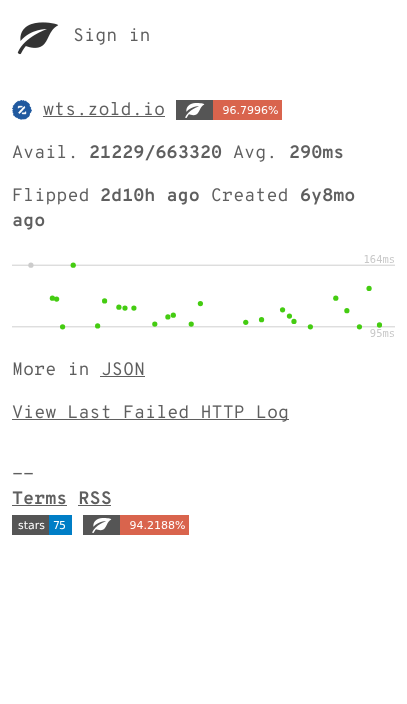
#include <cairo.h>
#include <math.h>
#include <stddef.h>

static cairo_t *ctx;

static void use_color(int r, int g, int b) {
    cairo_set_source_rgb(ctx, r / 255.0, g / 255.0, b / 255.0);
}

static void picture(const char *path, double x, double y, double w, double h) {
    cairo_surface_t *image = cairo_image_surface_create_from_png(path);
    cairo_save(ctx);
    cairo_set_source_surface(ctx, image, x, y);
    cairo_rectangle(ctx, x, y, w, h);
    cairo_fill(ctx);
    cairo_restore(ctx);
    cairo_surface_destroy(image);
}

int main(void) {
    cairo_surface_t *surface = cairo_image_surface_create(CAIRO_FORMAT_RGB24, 407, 704);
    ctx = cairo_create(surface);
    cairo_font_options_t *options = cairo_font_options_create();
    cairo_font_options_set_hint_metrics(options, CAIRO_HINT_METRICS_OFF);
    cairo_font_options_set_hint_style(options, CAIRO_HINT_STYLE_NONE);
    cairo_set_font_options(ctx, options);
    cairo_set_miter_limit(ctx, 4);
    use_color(255, 255, 255);
    cairo_paint(ctx);
    picture("img1.png", 17, 22, 42, 33);
    cairo_select_font_face(ctx, "Overpass Mono", CAIRO_FONT_SLANT_NORMAL, CAIRO_FONT_WEIGHT_NORMAL);
    cairo_set_font_size(ctx, 18);
    use_color(95, 95, 95);
    cairo_move_to(ctx, 73, 41);
    cairo_show_text(ctx, "Sign in");
    picture("img2.png", 12, 100, 20, 20);
    cairo_move_to(ctx, 43, 115);
    cairo_show_text(ctx, "wts.zold.io");
    cairo_rectangle(ctx, 43, 116, 122, 1);
    cairo_fill(ctx);
    picture("img3.png", 176, 100, 106, 20);
    cairo_move_to(ctx, 12, 158);
    cairo_show_text(ctx, "Avail.");
    cairo_select_font_face(ctx, "Overpass Mono", CAIRO_FONT_SLANT_NORMAL, CAIRO_FONT_WEIGHT_BOLD);
    cairo_move_to(ctx, 89, 158);
    cairo_show_text(ctx, "21229/663320");
    cairo_select_font_face(ctx, "Overpass Mono", CAIRO_FONT_SLANT_NORMAL, CAIRO_FONT_WEIGHT_NORMAL);
    cairo_move_to(ctx, 233, 158);
    cairo_show_text(ctx, "Avg.");
    cairo_select_font_face(ctx, "Overpass Mono", CAIRO_FONT_SLANT_NORMAL, CAIRO_FONT_WEIGHT_BOLD);
    cairo_move_to(ctx, 289, 158);
    cairo_show_text(ctx, "290ms");
    cairo_select_font_face(ctx, "Overpass Mono", CAIRO_FONT_SLANT_NORMAL, CAIRO_FONT_WEIGHT_NORMAL);
    cairo_move_to(ctx, 12, 201);
    cairo_show_text(ctx, "Flipped");
    cairo_select_font_face(ctx, "Overpass Mono", CAIRO_FONT_SLANT_NORMAL, CAIRO_FONT_WEIGHT_BOLD);
    cairo_move_to(ctx, 100, 201);
    cairo_show_text(ctx, "2d10h ago");
    cairo_select_font_face(ctx, "Overpass Mono", CAIRO_FONT_SLANT_NORMAL, CAIRO_FONT_WEIGHT_NORMAL);
    cairo_move_to(ctx, 211, 201);
    cairo_show_text(ctx, "Created");
    cairo_select_font_face(ctx, "Overpass Mono", CAIRO_FONT_SLANT_NORMAL, CAIRO_FONT_WEIGHT_BOLD);
    cairo_move_to(ctx, 300, 201);
    cairo_show_text(ctx, "6y8mo");
    cairo_move_to(ctx, 12, 226);
    cairo_show_text(ctx, "ago");
    picture("img4.png", 12, 255, 383, 82);
    cairo_select_font_face(ctx, "Overpass Mono", CAIRO_FONT_SLANT_NORMAL, CAIRO_FONT_WEIGHT_NORMAL);
    cairo_move_to(ctx, 12, 375);
    cairo_show_text(ctx, "More in JSON");
    cairo_rectangle(ctx, 100, 376, 45, 1);
    cairo_fill(ctx);
    cairo_rectangle(ctx, 12, 419, 277, 1);
    cairo_fill(ctx);
    cairo_move_to(ctx, 12, 418);
    cairo_show_text(ctx, "View Last Failed HTTP Log");
    cairo_move_to(ctx, 12, 479);
    cairo_show_text(ctx, "--");
    cairo_select_font_face(ctx, "Overpass Mono", CAIRO_FONT_SLANT_NORMAL, CAIRO_FONT_WEIGHT_BOLD);
    cairo_move_to(ctx, 12, 504);
    cairo_show_text(ctx, "Terms RSS");
    cairo_rectangle(ctx, 12, 505, 55, 1);
    cairo_fill(ctx);
    cairo_rectangle(ctx, 78, 505, 33, 1);
    cairo_fill(ctx);
    picture("img5.png", 12, 515, 60, 20);
    picture("img6.png", 83, 515, 106, 20);
    cairo_surface_write_to_png(surface, "result.png");
    cairo_font_options_destroy(options);
    cairo_destroy(ctx);
    cairo_surface_destroy(surface);
    return 0;
}
